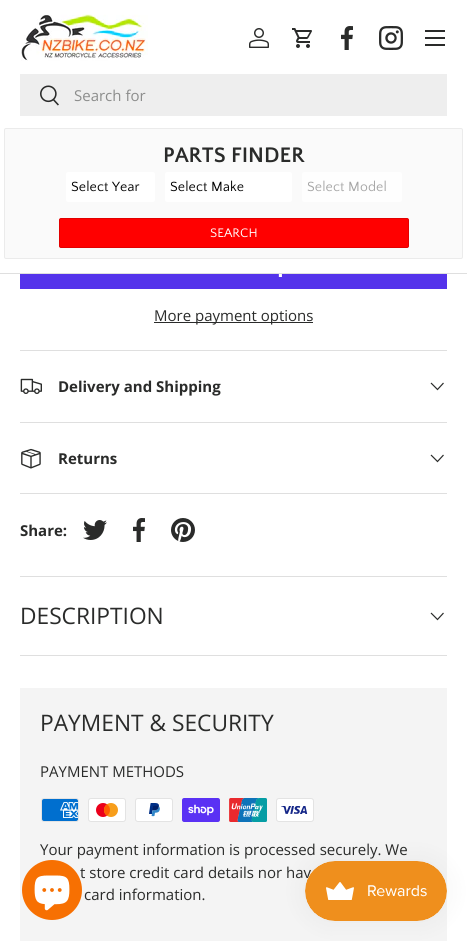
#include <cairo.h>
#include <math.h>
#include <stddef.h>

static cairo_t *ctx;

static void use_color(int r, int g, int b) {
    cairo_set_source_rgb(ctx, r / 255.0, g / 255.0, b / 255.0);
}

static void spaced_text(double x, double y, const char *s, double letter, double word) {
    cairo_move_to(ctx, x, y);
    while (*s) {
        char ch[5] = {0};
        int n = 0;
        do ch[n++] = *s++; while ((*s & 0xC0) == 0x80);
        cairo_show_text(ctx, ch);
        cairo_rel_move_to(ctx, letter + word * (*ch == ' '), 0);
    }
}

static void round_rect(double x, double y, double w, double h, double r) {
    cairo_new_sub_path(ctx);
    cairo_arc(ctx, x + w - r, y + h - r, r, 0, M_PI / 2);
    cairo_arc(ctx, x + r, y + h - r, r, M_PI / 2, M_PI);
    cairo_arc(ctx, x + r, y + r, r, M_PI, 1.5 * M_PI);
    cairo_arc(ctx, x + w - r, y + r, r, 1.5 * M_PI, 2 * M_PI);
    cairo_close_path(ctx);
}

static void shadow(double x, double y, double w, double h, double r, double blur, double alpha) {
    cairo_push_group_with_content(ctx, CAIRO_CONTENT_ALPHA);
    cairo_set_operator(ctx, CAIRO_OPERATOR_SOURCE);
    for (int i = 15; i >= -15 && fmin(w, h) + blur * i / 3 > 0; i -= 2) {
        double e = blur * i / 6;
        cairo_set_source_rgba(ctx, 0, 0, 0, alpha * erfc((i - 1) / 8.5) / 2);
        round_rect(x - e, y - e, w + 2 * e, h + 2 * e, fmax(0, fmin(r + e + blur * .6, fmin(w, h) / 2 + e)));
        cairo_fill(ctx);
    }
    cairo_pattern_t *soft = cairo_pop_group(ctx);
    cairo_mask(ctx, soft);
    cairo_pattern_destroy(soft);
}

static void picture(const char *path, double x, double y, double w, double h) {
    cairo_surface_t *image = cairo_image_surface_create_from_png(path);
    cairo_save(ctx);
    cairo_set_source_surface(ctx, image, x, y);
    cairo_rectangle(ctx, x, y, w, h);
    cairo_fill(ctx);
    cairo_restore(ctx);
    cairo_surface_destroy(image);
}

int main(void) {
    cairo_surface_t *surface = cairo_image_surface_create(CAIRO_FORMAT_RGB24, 467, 941);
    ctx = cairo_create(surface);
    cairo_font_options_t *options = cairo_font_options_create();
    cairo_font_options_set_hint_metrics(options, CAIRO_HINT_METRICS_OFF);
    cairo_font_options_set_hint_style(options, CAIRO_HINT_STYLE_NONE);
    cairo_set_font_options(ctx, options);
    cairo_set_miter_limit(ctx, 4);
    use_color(255, 255, 255);
    cairo_paint(ctx);
    use_color(223, 223, 223);
    cairo_rectangle(ctx, 0, 273, 467, 1);
    cairo_fill(ctx);
    picture("img1.png", 21, 14, 127, 47);
    picture("img2.png", 249, 28, 20, 20);
    picture("img3.png", 292, 28, 20, 20);
    picture("img4.png", 341, 26, 12, 24);
    picture("img5.png", 379, 26, 24, 24);
    use_color(42, 43, 42);
    cairo_rectangle(ctx, 425, 30, 20, 2);
    cairo_fill(ctx);
    cairo_rectangle(ctx, 425, 44, 20, 2);
    cairo_fill(ctx);
    cairo_rectangle(ctx, 425, 37, 20, 2);
    cairo_fill(ctx);
    use_color(238, 238, 238);
    cairo_rectangle(ctx, 20, 74, 427, 42);
    cairo_fill(ctx);
    picture("img6.png", 40, 85, 19, 21);
    cairo_select_font_face(ctx, "Open Sans", CAIRO_FONT_SLANT_NORMAL, CAIRO_FONT_WEIGHT_NORMAL);
    cairo_set_font_size(ctx, 15);
    use_color(140, 141, 140);
    cairo_move_to(ctx, 74, 101);
    cairo_show_text(ctx, "Search for");
    use_color(250, 250, 250);
    round_rect(4.5, 128.5, 458, 130, 1.5);
    cairo_fill_preserve(ctx);
    use_color(235, 235, 235);
    cairo_set_line_width(ctx, 1);
    cairo_stroke(ctx);
    cairo_select_font_face(ctx, "Quattrocento Sans", CAIRO_FONT_SLANT_NORMAL, CAIRO_FONT_WEIGHT_BOLD);
    cairo_set_font_size(ctx, 22);
    use_color(42, 43, 42);
    cairo_move_to(ctx, 163, 162);
    cairo_show_text(ctx, "PARTS FINDER");
    use_color(255, 255, 255);
    round_rect(66, 172, 89, 30, 2);
    cairo_fill(ctx);
    cairo_select_font_face(ctx, "Quattrocento Sans", CAIRO_FONT_SLANT_NORMAL, CAIRO_FONT_WEIGHT_NORMAL);
    cairo_set_font_size(ctx, 14);
    use_color(0, 0, 0);
    spaced_text(71, 191, "Select Year", 0.1, 0);
    use_color(255, 255, 255);
    round_rect(165, 172, 127, 30, 2);
    cairo_fill(ctx);
    use_color(0, 0, 0);
    spaced_text(170, 191, "Select Make", 0.1, 0);
    use_color(254, 254, 254);
    round_rect(302, 172, 100, 30, 2);
    cairo_fill(ctx);
    use_color(165, 165, 165);
    spaced_text(307, 191, "Select Model", 0.1, 0);
    use_color(255, 0, 0);
    round_rect(59.5, 218.5, 349, 29, 1.5);
    cairo_fill_preserve(ctx);
    use_color(226, 0, 0);
    cairo_stroke(ctx);
    cairo_set_font_size(ctx, 13);
    use_color(255, 255, 255);
    cairo_move_to(ctx, 210, 237);
    cairo_show_text(ctx, "SEARCH");
    use_color(84, 51, 235);
    cairo_rectangle(ctx, 20, 274, 427, 15);
    cairo_fill(ctx);
    picture("img7.png", 278, 274, 4, 3);
    use_color(42, 43, 42);
    cairo_rectangle(ctx, 154, 322, 159, 1);
    cairo_fill(ctx);
    cairo_select_font_face(ctx, "Open Sans", CAIRO_FONT_SLANT_NORMAL, CAIRO_FONT_WEIGHT_NORMAL);
    cairo_set_font_size(ctx, 15);
    cairo_move_to(ctx, 154, 321);
    cairo_show_text(ctx, "More payment options");
    use_color(223, 223, 223);
    cairo_rectangle(ctx, 20, 350, 427, 1);
    cairo_fill(ctx);
    cairo_rectangle(ctx, 20, 422, 427, 1);
    cairo_fill(ctx);
    picture("img8.png", 20, 378, 22, 16);
    cairo_select_font_face(ctx, "Open Sans", CAIRO_FONT_SLANT_NORMAL, CAIRO_FONT_WEIGHT_BOLD);
    use_color(42, 43, 42);
    cairo_move_to(ctx, 58, 392);
    cairo_show_text(ctx, "Delivery and Shipping");
    cairo_new_path(ctx);
    cairo_move_to(ctx, 443.5, 383);
    cairo_line_to(ctx, 437.5, 389.5);
    cairo_line_to(ctx, 431, 383);
    cairo_set_line_width(ctx, 1.2);
    cairo_stroke(ctx);
    use_color(223, 223, 223);
    cairo_rectangle(ctx, 20, 493, 427, 1);
    cairo_fill(ctx);
    picture("img9.png", 21, 448, 20, 21);
    use_color(42, 43, 42);
    cairo_move_to(ctx, 58, 464);
    cairo_show_text(ctx, "Returns");
    cairo_new_path(ctx);
    cairo_move_to(ctx, 443.5, 455);
    cairo_line_to(ctx, 437.5, 461.5);
    cairo_line_to(ctx, 431, 455);
    cairo_stroke(ctx);
    cairo_move_to(ctx, 20, 536);
    cairo_show_text(ctx, "Share:");
    picture("img10.png", 83, 520, 24, 20);
    picture("img4.png", 133, 518, 12, 24);
    picture("img11.png", 171, 518, 24, 24);
    use_color(223, 223, 223);
    cairo_rectangle(ctx, 20, 576, 427, 1);
    cairo_fill(ctx);
    cairo_rectangle(ctx, 20, 655, 427, 1);
    cairo_fill(ctx);
    cairo_select_font_face(ctx, "Open Sans", CAIRO_FONT_SLANT_NORMAL, CAIRO_FONT_WEIGHT_NORMAL);
    cairo_set_font_size(ctx, 22.75);
    use_color(42, 43, 42);
    cairo_move_to(ctx, 20, 624);
    cairo_show_text(ctx, "DESCRIPTION");
    cairo_new_path(ctx);
    cairo_move_to(ctx, 443.5, 613);
    cairo_line_to(ctx, 437.5, 619.5);
    cairo_line_to(ctx, 431, 613);
    cairo_stroke(ctx);
    use_color(244, 244, 244);
    cairo_rectangle(ctx, 20, 688, 427, 253);
    cairo_fill(ctx);
    use_color(42, 43, 42);
    cairo_move_to(ctx, 40, 731);
    cairo_show_text(ctx, "PAYMENT & SECURITY");
    cairo_set_font_size(ctx, 15);
    cairo_move_to(ctx, 40, 777);
    cairo_show_text(ctx, "PAYMENT METHODS");
    picture("img12.png", 41, 798, 38, 24);
    picture("img13.png", 88, 798, 38, 24);
    picture("img14.png", 135, 798, 38, 24);
    picture("img15.png", 182, 798, 38, 24);
    picture("img16.png", 229, 798, 38, 24);
    picture("img17.png", 276, 798, 38, 24);
    cairo_move_to(ctx, 40, 855);
    cairo_show_text(ctx, "Your payment information is processed securely. We");
    cairo_move_to(ctx, 80, 878);
    cairo_show_text(ctx, "t store credit card details nor hav");
    cairo_move_to(ctx, 84, 900);
    cairo_show_text(ctx, "card information.");
    use_color(247, 112, 2);
    cairo_new_path(ctx);
    cairo_arc(ctx, 52, 890, 30, 0, 2 * M_PI);
    cairo_fill(ctx);
    picture("img18.png", 34, 875, 36, 36);
    use_color(0, 0, 0);
    shadow(305, 861, 142, 60, 30, 12.5, 0.05);
    picture("img19.png", 305, 861, 142, 60);
    cairo_surface_write_to_png(surface, "result.png");
    cairo_font_options_destroy(options);
    cairo_destroy(ctx);
    cairo_surface_destroy(surface);
    return 0;
}
